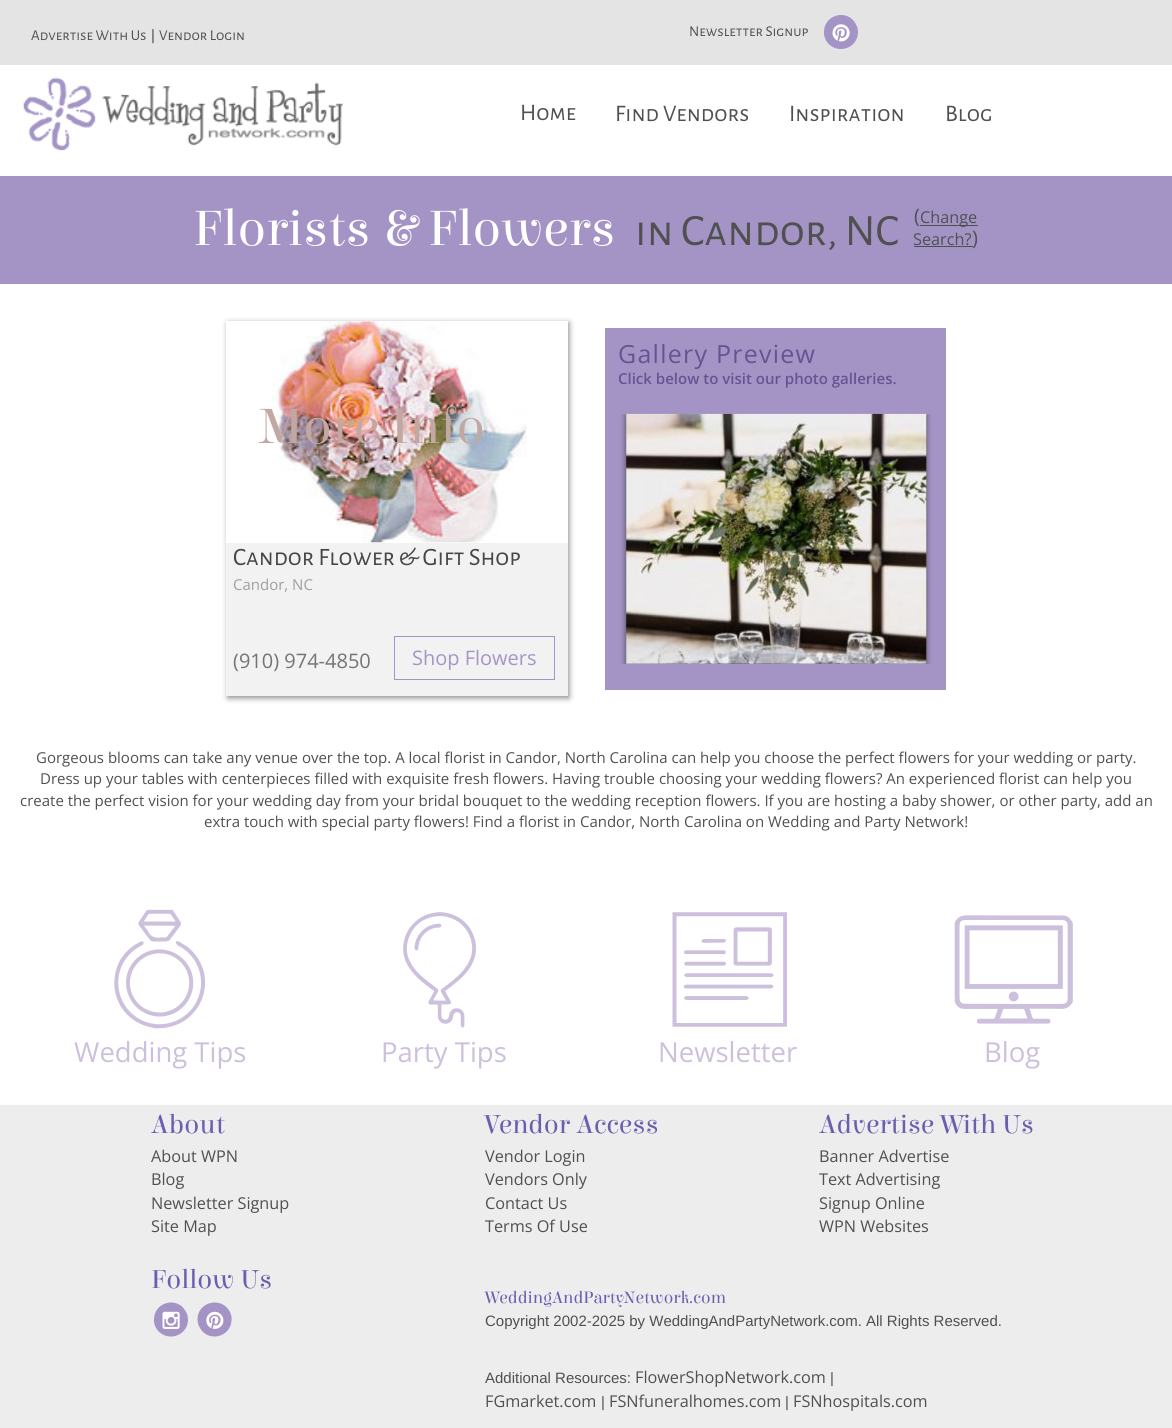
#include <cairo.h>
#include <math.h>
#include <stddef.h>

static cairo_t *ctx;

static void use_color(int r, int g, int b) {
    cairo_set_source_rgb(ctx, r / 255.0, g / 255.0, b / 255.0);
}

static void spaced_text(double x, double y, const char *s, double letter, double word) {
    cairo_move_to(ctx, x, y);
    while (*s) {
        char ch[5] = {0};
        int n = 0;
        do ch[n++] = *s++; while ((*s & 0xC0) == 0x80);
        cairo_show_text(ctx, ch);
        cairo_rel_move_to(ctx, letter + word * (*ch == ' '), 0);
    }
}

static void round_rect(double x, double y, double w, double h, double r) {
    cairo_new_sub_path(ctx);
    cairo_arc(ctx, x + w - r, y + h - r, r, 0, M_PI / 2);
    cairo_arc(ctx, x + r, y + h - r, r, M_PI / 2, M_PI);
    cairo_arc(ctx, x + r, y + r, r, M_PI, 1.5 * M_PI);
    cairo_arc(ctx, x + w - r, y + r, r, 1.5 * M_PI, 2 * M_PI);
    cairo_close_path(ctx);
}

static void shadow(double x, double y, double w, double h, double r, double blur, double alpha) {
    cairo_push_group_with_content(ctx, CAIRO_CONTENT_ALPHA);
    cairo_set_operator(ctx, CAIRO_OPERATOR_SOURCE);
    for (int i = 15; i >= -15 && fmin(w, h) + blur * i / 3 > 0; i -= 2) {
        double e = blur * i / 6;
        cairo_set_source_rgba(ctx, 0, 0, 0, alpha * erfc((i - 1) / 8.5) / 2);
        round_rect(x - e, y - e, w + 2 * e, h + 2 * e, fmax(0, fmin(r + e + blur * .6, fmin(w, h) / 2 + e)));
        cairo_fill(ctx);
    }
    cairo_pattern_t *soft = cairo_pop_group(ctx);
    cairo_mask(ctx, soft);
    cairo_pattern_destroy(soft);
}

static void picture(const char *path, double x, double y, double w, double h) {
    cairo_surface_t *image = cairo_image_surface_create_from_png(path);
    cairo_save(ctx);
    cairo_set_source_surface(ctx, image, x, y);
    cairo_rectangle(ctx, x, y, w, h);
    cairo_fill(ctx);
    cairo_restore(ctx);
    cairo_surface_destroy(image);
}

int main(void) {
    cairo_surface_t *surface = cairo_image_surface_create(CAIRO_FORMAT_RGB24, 1172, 1428);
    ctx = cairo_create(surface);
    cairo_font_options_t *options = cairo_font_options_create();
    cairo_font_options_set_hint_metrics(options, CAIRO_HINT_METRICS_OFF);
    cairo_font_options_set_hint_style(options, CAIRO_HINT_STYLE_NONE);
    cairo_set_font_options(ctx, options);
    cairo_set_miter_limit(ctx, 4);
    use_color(255, 255, 255);
    cairo_paint(ctx);
    use_color(228, 228, 228);
    cairo_rectangle(ctx, 0, 0, 1172, 65);
    cairo_fill(ctx);
    cairo_select_font_face(ctx, "Alegreya Sans SC", CAIRO_FONT_SLANT_NORMAL, CAIRO_FONT_WEIGHT_NORMAL);
    cairo_set_font_size(ctx, 15);
    use_color(80, 80, 80);
    cairo_move_to(ctx, 31, 40);
    cairo_show_text(ctx, "Advertise With Us");
    cairo_select_font_face(ctx, "Liberation Sans", CAIRO_FONT_SLANT_NORMAL, CAIRO_FONT_WEIGHT_NORMAL);
    cairo_move_to(ctx, 151, 40);
    cairo_show_text(ctx, "|");
    cairo_select_font_face(ctx, "Alegreya Sans SC", CAIRO_FONT_SLANT_NORMAL, CAIRO_FONT_WEIGHT_NORMAL);
    cairo_move_to(ctx, 159, 40);
    cairo_show_text(ctx, "Vendor Login");
    cairo_move_to(ctx, 689, 36);
    cairo_show_text(ctx, "Newsletter Signup");
    use_color(164, 148, 198);
    cairo_new_path(ctx);
    cairo_move_to(ctx, 855.5, 23.5);
    cairo_curve_to(ctx, 857.5, 26.5, 858, 29.5, 858, 33);
    cairo_curve_to(ctx, 857, 50, 834.5, 55, 826, 40.5);
    cairo_curve_to(ctx, 824.5, 37.5, 823.5, 34, 824, 31);
    cairo_curve_to(ctx, 825, 14, 847.5, 9, 855.5, 23.5);
    cairo_close_path(ctx);
    cairo_fill(ctx);
    picture("img1.png", 832, 24, 18, 18);
    picture("img2.png", 23, 77, 320, 74);
    cairo_set_font_size(ctx, 23.75);
    use_color(80, 80, 80);
    cairo_move_to(ctx, 520, 120);
    cairo_show_text(ctx, "Home");
    cairo_move_to(ctx, 615, 121);
    cairo_show_text(ctx, "Find Vendors");
    cairo_move_to(ctx, 789, 121);
    cairo_show_text(ctx, "Inspiration");
    cairo_move_to(ctx, 945, 121);
    cairo_show_text(ctx, "Blog");
    use_color(164, 148, 198);
    cairo_rectangle(ctx, 0, 176, 1172, 108);
    cairo_fill(ctx);
    cairo_select_font_face(ctx, "Elsie", CAIRO_FONT_SLANT_NORMAL, CAIRO_FONT_WEIGHT_NORMAL);
    cairo_set_font_size(ctx, 52.5);
    use_color(255, 255, 255);
    cairo_move_to(ctx, 193, 245);
    cairo_show_text(ctx, "Florists & Flowers");
    cairo_select_font_face(ctx, "Alegreya Sans SC", CAIRO_FONT_SLANT_NORMAL, CAIRO_FONT_WEIGHT_NORMAL);
    cairo_set_font_size(ctx, 45);
    use_color(80, 80, 80);
    cairo_move_to(ctx, 635, 245);
    cairo_show_text(ctx, "in Candor, NC");
    cairo_select_font_face(ctx, "Open Sans", CAIRO_FONT_SLANT_NORMAL, CAIRO_FONT_WEIGHT_NORMAL);
    cairo_set_font_size(ctx, 20);
    cairo_move_to(ctx, 914, 223);
    cairo_show_text(ctx, "(");
    use_color(79, 79, 79);
    cairo_rectangle(ctx, 920, 225, 58, 1);
    cairo_fill(ctx);
    cairo_set_font_size(ctx, 16.25);
    use_color(80, 80, 80);
    cairo_move_to(ctx, 920, 223);
    cairo_show_text(ctx, "Change");
    cairo_move_to(ctx, 913, 245);
    cairo_show_text(ctx, "Search?");
    use_color(79, 79, 79);
    cairo_rectangle(ctx, 914, 246, 59, 1);
    cairo_fill(ctx);
    cairo_set_font_size(ctx, 20);
    use_color(80, 80, 80);
    cairo_move_to(ctx, 972, 245);
    cairo_show_text(ctx, ")");
    use_color(164, 148, 198);
    cairo_rectangle(ctx, 605, 328, 341, 362);
    cairo_fill(ctx);
    cairo_set_font_size(ctx, 25);
    use_color(103, 82, 146);
    spaced_text(618, 363, "Gallery Preview", 1.25, 0);
    cairo_select_font_face(ctx, "Open Sans SemiBold", CAIRO_FONT_SLANT_NORMAL, CAIRO_FONT_WEIGHT_NORMAL);
    cairo_set_font_size(ctx, 15);
    cairo_move_to(ctx, 618, 384);
    cairo_show_text(ctx, "Click below to visit our photo galleries.");
    cairo_save(ctx);
    cairo_rectangle(ctx, 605, 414, 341, 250);
    cairo_clip(ctx);
    use_color(68, 68, 68);
    shadow(626, 415, 300, 450, 0, 3, 1);
    cairo_restore(ctx);
    picture("img3.png", 626, 413, 301, 251);
    use_color(136, 136, 136);
    shadow(228, 323, 341, 375, 0, 3, 1);
    use_color(242, 242, 242);
    cairo_rectangle(ctx, 226, 543, 342, 153);
    cairo_fill(ctx);
    use_color(255, 255, 255);
    cairo_rectangle(ctx, 226, 321, 342, 222);
    cairo_fill(ctx);
    picture("img4.png", 272, 321, 255, 222);
    cairo_select_font_face(ctx, "Elsie", CAIRO_FONT_SLANT_NORMAL, CAIRO_FONT_WEIGHT_NORMAL);
    cairo_set_font_size(ctx, 52.5);
    use_color(193, 168, 163);
    cairo_move_to(ctx, 259, 443);
    cairo_show_text(ctx, "More Info");
    cairo_select_font_face(ctx, "Alegreya Sans SC", CAIRO_FONT_SLANT_NORMAL, CAIRO_FONT_WEIGHT_NORMAL);
    cairo_set_font_size(ctx, 25);
    use_color(70, 70, 70);
    cairo_move_to(ctx, 233, 565);
    cairo_show_text(ctx, "Candor Flower & Gift Shop");
    cairo_select_font_face(ctx, "Open Sans", CAIRO_FONT_SLANT_NORMAL, CAIRO_FONT_WEIGHT_NORMAL);
    cairo_set_font_size(ctx, 15);
    use_color(159, 159, 159);
    cairo_move_to(ctx, 233, 590);
    cairo_show_text(ctx, "Candor, NC");
    cairo_set_font_size(ctx, 20);
    use_color(117, 115, 115);
    cairo_move_to(ctx, 233, 668);
    cairo_show_text(ctx, "(910) 974-4850");
    cairo_rectangle(ctx, 394.5, 636.5, 160, 43);
    use_color(165, 149, 198);
    cairo_set_line_width(ctx, 1);
    cairo_stroke(ctx);
    cairo_move_to(ctx, 412, 665);
    cairo_show_text(ctx, "Shop Flowers");
    cairo_set_font_size(ctx, 15);
    use_color(80, 80, 80);
    cairo_move_to(ctx, 36, 763);
    cairo_show_text(ctx, "Gorgeous blooms can take any venue over the top. A local florist in Candor, North Carolina can help you choose the perfect flowers for your wedding or party.");
    cairo_move_to(ctx, 40, 784);
    cairo_show_text(ctx, "Dress up your tables with centerpieces filled with exquisite fresh flowers. Having trouble choosing your wedding flowers? An experienced florist can help you");
    cairo_move_to(ctx, 20, 806);
    cairo_show_text(ctx, "create the perfect vision for your wedding day from your bridal bouquet to the wedding reception flowers. If you are hosting a baby shower, or other party, add an");
    cairo_move_to(ctx, 204, 827);
    cairo_show_text(ctx, "extra touch with special party flowers! Find a florist in Candor, North Carolina on Wedding and Party Network!");
    picture("img5.png", 114, 909, 92, 120);
    cairo_set_font_size(ctx, 27.5);
    use_color(205, 192, 221);
    cairo_move_to(ctx, 74, 1062);
    cairo_show_text(ctx, "Wedding Tips");
    picture("img6.png", 403, 912, 74, 116);
    cairo_move_to(ctx, 381, 1062);
    cairo_show_text(ctx, "Party Tips");
    picture("img7.png", 672, 912, 115, 115);
    cairo_move_to(ctx, 658, 1062);
    cairo_show_text(ctx, "Newsletter");
    picture("img8.png", 954, 915, 119, 109);
    cairo_move_to(ctx, 984, 1062);
    cairo_show_text(ctx, "Blog");
    use_color(237, 237, 237);
    cairo_rectangle(ctx, 0, 1105, 1172, 323);
    cairo_fill(ctx);
    cairo_select_font_face(ctx, "Elsie", CAIRO_FONT_SLANT_NORMAL, CAIRO_FONT_WEIGHT_NORMAL);
    use_color(108, 93, 176);
    cairo_move_to(ctx, 151, 1133);
    cairo_show_text(ctx, "About");
    cairo_select_font_face(ctx, "Open Sans", CAIRO_FONT_SLANT_NORMAL, CAIRO_FONT_WEIGHT_NORMAL);
    cairo_set_font_size(ctx, 16.25);
    use_color(80, 80, 80);
    cairo_move_to(ctx, 151, 1162);
    cairo_show_text(ctx, "About WPN");
    cairo_move_to(ctx, 151, 1185);
    cairo_show_text(ctx, "Blog");
    cairo_move_to(ctx, 151, 1209);
    cairo_show_text(ctx, "Newsletter Signup");
    cairo_move_to(ctx, 151, 1232);
    cairo_show_text(ctx, "Site Map");
    cairo_select_font_face(ctx, "Elsie", CAIRO_FONT_SLANT_NORMAL, CAIRO_FONT_WEIGHT_NORMAL);
    cairo_set_font_size(ctx, 27.5);
    use_color(108, 93, 176);
    cairo_move_to(ctx, 485, 1133);
    cairo_show_text(ctx, "Vendor Access");
    cairo_select_font_face(ctx, "Open Sans", CAIRO_FONT_SLANT_NORMAL, CAIRO_FONT_WEIGHT_NORMAL);
    cairo_set_font_size(ctx, 16.25);
    use_color(80, 80, 80);
    cairo_move_to(ctx, 485, 1162);
    cairo_show_text(ctx, "Vendor Login");
    cairo_move_to(ctx, 485, 1185);
    cairo_show_text(ctx, "Vendors Only");
    cairo_move_to(ctx, 485, 1209);
    cairo_show_text(ctx, "Contact Us");
    cairo_move_to(ctx, 485, 1232);
    cairo_show_text(ctx, "Terms Of Use");
    cairo_select_font_face(ctx, "Elsie", CAIRO_FONT_SLANT_NORMAL, CAIRO_FONT_WEIGHT_NORMAL);
    cairo_set_font_size(ctx, 27.5);
    use_color(108, 93, 176);
    cairo_move_to(ctx, 819, 1133);
    cairo_show_text(ctx, "Advertise With Us");
    cairo_select_font_face(ctx, "Open Sans", CAIRO_FONT_SLANT_NORMAL, CAIRO_FONT_WEIGHT_NORMAL);
    cairo_set_font_size(ctx, 16.25);
    use_color(80, 80, 80);
    cairo_move_to(ctx, 819, 1162);
    cairo_show_text(ctx, "Banner Advertise");
    cairo_move_to(ctx, 819, 1185);
    cairo_show_text(ctx, "Text Advertising");
    cairo_move_to(ctx, 819, 1209);
    cairo_show_text(ctx, "Signup Online");
    cairo_move_to(ctx, 819, 1232);
    cairo_show_text(ctx, "WPN Websites");
    cairo_select_font_face(ctx, "Elsie", CAIRO_FONT_SLANT_NORMAL, CAIRO_FONT_WEIGHT_NORMAL);
    cairo_set_font_size(ctx, 27.5);
    use_color(108, 93, 176);
    cairo_move_to(ctx, 151, 1288);
    cairo_show_text(ctx, "Follow Us");
    use_color(164, 148, 198);
    cairo_new_path(ctx);
    cairo_move_to(ctx, 185.5, 1311);
    cairo_curve_to(ctx, 187.5, 1314, 188, 1317, 188, 1320.5);
    cairo_curve_to(ctx, 187, 1337.5, 164.5, 1342.5, 156, 1328);
    cairo_curve_to(ctx, 154.5, 1325, 153.5, 1321.5, 154, 1318.5);
    cairo_curve_to(ctx, 155, 1301.5, 177.5, 1296.5, 185.5, 1311);
    cairo_close_path(ctx);
    cairo_fill(ctx);
    picture("img9.png", 162, 1311, 18, 18);
    cairo_new_path(ctx);
    cairo_move_to(ctx, 229.5, 1311);
    cairo_curve_to(ctx, 231, 1314, 232, 1317, 231.5, 1320.5);
    cairo_curve_to(ctx, 230.5, 1337.5, 208, 1342.5, 200, 1328);
    cairo_curve_to(ctx, 198, 1325, 197.5, 1321.5, 197.5, 1318.5);
    cairo_curve_to(ctx, 198.5, 1301.5, 221, 1296.5, 229.5, 1311);
    cairo_close_path(ctx);
    cairo_fill(ctx);
    picture("img10.png", 206, 1311, 18, 18);
    cairo_set_font_size(ctx, 17.5);
    use_color(108, 93, 176);
    cairo_move_to(ctx, 485, 1303);
    cairo_show_text(ctx, "WeddingAndPartyNetwork.com");
    cairo_select_font_face(ctx, "Liberation Sans", CAIRO_FONT_SLANT_NORMAL, CAIRO_FONT_WEIGHT_NORMAL);
    cairo_set_font_size(ctx, 15);
    use_color(80, 80, 80);
    cairo_move_to(ctx, 485, 1326);
    cairo_show_text(ctx, "Copyright 2002-2025 by WeddingAndPartyNetwork.com. All Rights Reserved.");
    cairo_move_to(ctx, 485, 1383);
    cairo_show_text(ctx, "Additional Resources:");
    cairo_select_font_face(ctx, "Open Sans", CAIRO_FONT_SLANT_NORMAL, CAIRO_FONT_WEIGHT_NORMAL);
    cairo_set_font_size(ctx, 16.25);
    cairo_move_to(ctx, 635, 1383);
    cairo_show_text(ctx, "FlowerShopNetwork.com");
    cairo_select_font_face(ctx, "Liberation Sans", CAIRO_FONT_SLANT_NORMAL, CAIRO_FONT_WEIGHT_NORMAL);
    cairo_set_font_size(ctx, 15);
    cairo_move_to(ctx, 830, 1383);
    cairo_show_text(ctx, "|");
    cairo_select_font_face(ctx, "Open Sans", CAIRO_FONT_SLANT_NORMAL, CAIRO_FONT_WEIGHT_NORMAL);
    cairo_set_font_size(ctx, 16.25);
    cairo_move_to(ctx, 485, 1407);
    cairo_show_text(ctx, "FGmarket.com");
    cairo_select_font_face(ctx, "Liberation Sans", CAIRO_FONT_SLANT_NORMAL, CAIRO_FONT_WEIGHT_NORMAL);
    cairo_set_font_size(ctx, 15);
    cairo_move_to(ctx, 601, 1407);
    cairo_show_text(ctx, "|");
    cairo_select_font_face(ctx, "Open Sans", CAIRO_FONT_SLANT_NORMAL, CAIRO_FONT_WEIGHT_NORMAL);
    cairo_set_font_size(ctx, 16.25);
    cairo_move_to(ctx, 609, 1407);
    cairo_show_text(ctx, "FSNfuneralhomes.com");
    cairo_select_font_face(ctx, "Liberation Sans", CAIRO_FONT_SLANT_NORMAL, CAIRO_FONT_WEIGHT_NORMAL);
    cairo_set_font_size(ctx, 15);
    cairo_move_to(ctx, 785, 1407);
    cairo_show_text(ctx, "|");
    cairo_select_font_face(ctx, "Open Sans", CAIRO_FONT_SLANT_NORMAL, CAIRO_FONT_WEIGHT_NORMAL);
    cairo_set_font_size(ctx, 16.25);
    cairo_move_to(ctx, 793, 1407);
    cairo_show_text(ctx, "FSNhospitals.com");
    cairo_surface_write_to_png(surface, "result.png");
    cairo_font_options_destroy(options);
    cairo_destroy(ctx);
    cairo_surface_destroy(surface);
    return 0;
}
